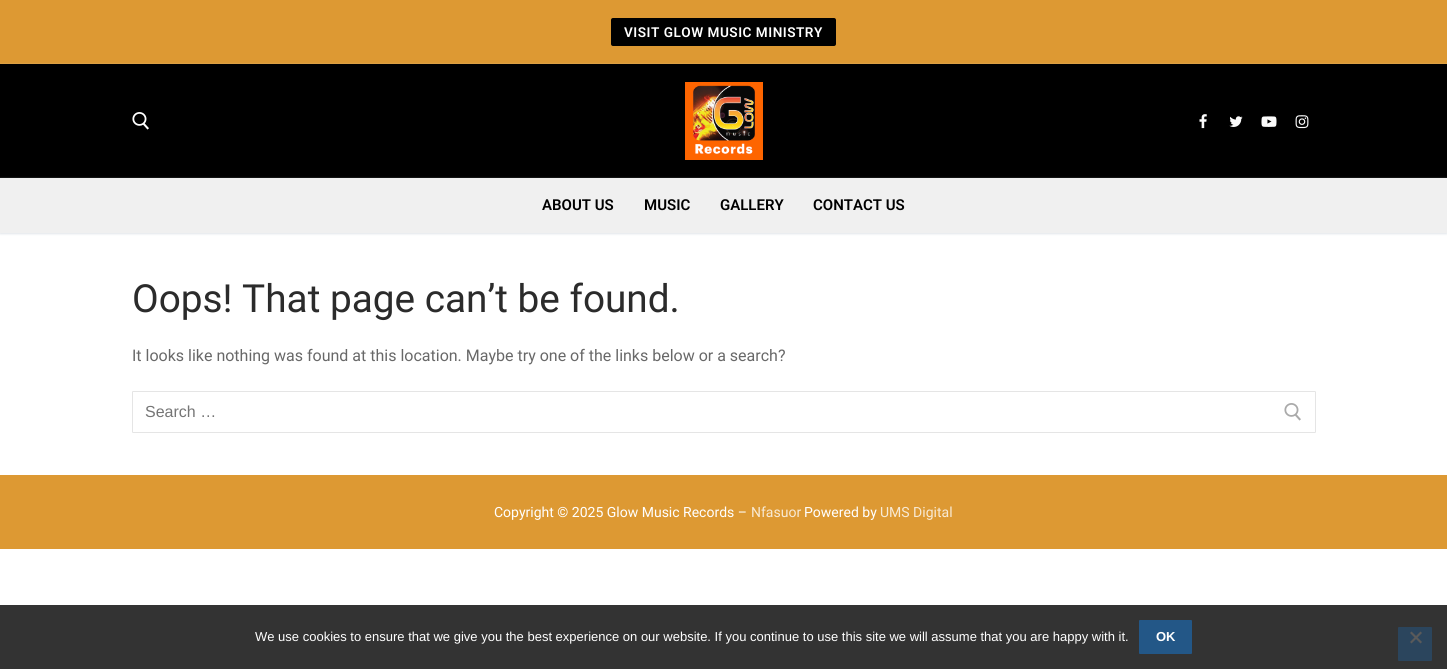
#include <cairo.h>
#include <math.h>
#include <stddef.h>

static cairo_t *ctx;

static void use_color(int r, int g, int b) {
    cairo_set_source_rgb(ctx, r / 255.0, g / 255.0, b / 255.0);
}

static void spaced_text(double x, double y, const char *s, double letter, double word) {
    cairo_move_to(ctx, x, y);
    while (*s) {
        char ch[5] = {0};
        int n = 0;
        do ch[n++] = *s++; while ((*s & 0xC0) == 0x80);
        cairo_show_text(ctx, ch);
        cairo_rel_move_to(ctx, letter + word * (*ch == ' '), 0);
    }
}

static void round_rect(double x, double y, double w, double h, double r) {
    cairo_new_sub_path(ctx);
    cairo_arc(ctx, x + w - r, y + h - r, r, 0, M_PI / 2);
    cairo_arc(ctx, x + r, y + h - r, r, M_PI / 2, M_PI);
    cairo_arc(ctx, x + r, y + r, r, M_PI, 1.5 * M_PI);
    cairo_arc(ctx, x + w - r, y + r, r, 1.5 * M_PI, 2 * M_PI);
    cairo_close_path(ctx);
}

static void shadow(double x, double y, double w, double h, double r, double blur, double alpha) {
    cairo_push_group_with_content(ctx, CAIRO_CONTENT_ALPHA);
    cairo_set_operator(ctx, CAIRO_OPERATOR_SOURCE);
    for (int i = 15; i >= -15 && fmin(w, h) + blur * i / 3 > 0; i -= 2) {
        double e = blur * i / 6;
        cairo_set_source_rgba(ctx, 0, 0, 0, alpha * erfc((i - 1) / 8.5) / 2);
        round_rect(x - e, y - e, w + 2 * e, h + 2 * e, fmax(0, fmin(r + e + blur * .6, fmin(w, h) / 2 + e)));
        cairo_fill(ctx);
    }
    cairo_pattern_t *soft = cairo_pop_group(ctx);
    cairo_mask(ctx, soft);
    cairo_pattern_destroy(soft);
}

static void picture(const char *path, double x, double y, double w, double h) {
    cairo_surface_t *image = cairo_image_surface_create_from_png(path);
    cairo_save(ctx);
    cairo_set_source_surface(ctx, image, x, y);
    cairo_rectangle(ctx, x, y, w, h);
    cairo_fill(ctx);
    cairo_restore(ctx);
    cairo_surface_destroy(image);
}

int main(void) {
    cairo_surface_t *surface = cairo_image_surface_create(CAIRO_FORMAT_RGB24, 1447, 669);
    ctx = cairo_create(surface);
    cairo_font_options_t *options = cairo_font_options_create();
    cairo_font_options_set_hint_metrics(options, CAIRO_HINT_METRICS_OFF);
    cairo_font_options_set_hint_style(options, CAIRO_HINT_STYLE_NONE);
    cairo_set_font_options(ctx, options);
    cairo_set_miter_limit(ctx, 4);
    use_color(255, 255, 255);
    cairo_paint(ctx);
    use_color(221, 153, 51);
    cairo_rectangle(ctx, 0, 0, 1447, 64);
    cairo_fill(ctx);
    use_color(0, 0, 0);
    round_rect(611, 18, 225, 28, 2);
    cairo_fill(ctx);
    cairo_select_font_face(ctx, "Roboto SemiBold", CAIRO_FONT_SLANT_NORMAL, CAIRO_FONT_WEIGHT_NORMAL);
    cairo_set_font_size(ctx, 13.6);
    use_color(255, 255, 255);
    spaced_text(624, 37, "VISIT GLOW MUSIC MINISTRY", 0.5, 0);
    use_color(225, 229, 234);
    shadow(0, 65, 1447, 114, 0, 1, 1);
    use_color(0, 0, 0);
    cairo_rectangle(ctx, 0, 64, 1447, 114);
    cairo_fill(ctx);
    picture("img1.png", 132, 112, 17, 18);
    picture("img2.png", 685, 82, 78, 78);
    picture("img3.png", 1199, 114, 8, 15);
    picture("img4.png", 1229, 116, 14, 11);
    picture("img5.png", 1261, 116, 16, 11);
    picture("img6.png", 1295, 115, 14, 14);
    use_color(225, 229, 234);
    shadow(0, 179, 1447, 55, 0, 1, 1);
    use_color(240, 240, 240);
    cairo_rectangle(ctx, 0, 178, 1447, 55);
    cairo_fill(ctx);
    cairo_set_font_size(ctx, 15);
    use_color(0, 0, 0);
    cairo_move_to(ctx, 542, 210);
    cairo_show_text(ctx, "ABOUT US");
    cairo_move_to(ctx, 644, 210);
    cairo_show_text(ctx, "MUSIC");
    cairo_move_to(ctx, 720, 210);
    cairo_show_text(ctx, "GALLERY");
    cairo_move_to(ctx, 813, 210);
    cairo_show_text(ctx, "CONTACT US");
    cairo_select_font_face(ctx, "Roboto", CAIRO_FONT_SLANT_NORMAL, CAIRO_FONT_WEIGHT_NORMAL);
    cairo_set_font_size(ctx, 38.75);
    use_color(43, 43, 43);
    cairo_move_to(ctx, 132, 312);
    cairo_show_text(ctx, "Oops! That page can’t be found.");
    cairo_set_font_size(ctx, 16);
    use_color(104, 104, 104);
    cairo_move_to(ctx, 132, 361);
    cairo_show_text(ctx, "It looks like nothing was found at this location. Maybe try one of the links below or a search?");
    round_rect(132.5, 391.5, 1183, 41, 0.5);
    use_color(229, 229, 229);
    cairo_set_line_width(ctx, 1);
    cairo_stroke(ctx);
    cairo_select_font_face(ctx, "Liberation Sans", CAIRO_FONT_SLANT_NORMAL, CAIRO_FONT_WEIGHT_NORMAL);
    use_color(117, 117, 117);
    cairo_move_to(ctx, 145, 417);
    cairo_show_text(ctx, "Search …");
    picture("img7.png", 1284, 403, 17, 18);
    use_color(221, 153, 51);
    cairo_rectangle(ctx, 0, 475, 1447, 74);
    cairo_fill(ctx);
    cairo_select_font_face(ctx, "Roboto", CAIRO_FONT_SLANT_NORMAL, CAIRO_FONT_WEIGHT_NORMAL);
    cairo_set_font_size(ctx, 14);
    use_color(255, 255, 255);
    cairo_move_to(ctx, 494, 517);
    cairo_show_text(ctx, "Copyright © 2025 Glow Music Records –");
    use_color(248, 234, 212);
    cairo_move_to(ctx, 751, 517);
    cairo_show_text(ctx, "Nfasuor");
    use_color(255, 255, 255);
    cairo_move_to(ctx, 804, 517);
    cairo_show_text(ctx, "Powered by");
    use_color(248, 234, 212);
    cairo_move_to(ctx, 880, 517);
    cairo_show_text(ctx, "UMS Digital");
    use_color(51, 51, 51);
    cairo_rectangle(ctx, 0, 605, 1447, 64);
    cairo_fill(ctx);
    cairo_select_font_face(ctx, "Liberation Sans", CAIRO_FONT_SLANT_NORMAL, CAIRO_FONT_WEIGHT_NORMAL);
    cairo_set_font_size(ctx, 13);
    use_color(255, 255, 255);
    cairo_move_to(ctx, 255, 641);
    cairo_show_text(ctx, "We use cookies to ensure that we give you the best experience on our website. If you continue to use this site we will assume that you are happy with it.");
    use_color(35, 87, 135);
    round_rect(1139, 620, 53, 34, 1);
    cairo_fill(ctx);
    cairo_select_font_face(ctx, "Liberation Sans", CAIRO_FONT_SLANT_NORMAL, CAIRO_FONT_WEIGHT_BOLD);
    use_color(255, 255, 255);
    cairo_move_to(ctx, 1156, 641);
    cairo_show_text(ctx, "OK");
    use_color(43, 69, 93);
    round_rect(1398, 627, 34, 34, 1);
    cairo_fill(ctx);
    use_color(90, 90, 90);
    cairo_new_path(ctx);
    cairo_move_to(ctx, 1420.5, 631.5);
    cairo_line_to(ctx, 1422, 633);
    cairo_line_to(ctx, 1411.5, 643.5);
    cairo_line_to(ctx, 1410, 642);
    cairo_close_path(ctx);
    cairo_fill(ctx);
    cairo_new_path(ctx);
    cairo_move_to(ctx, 1410, 633);
    cairo_line_to(ctx, 1411.5, 631.5);
    cairo_line_to(ctx, 1422, 642);
    cairo_line_to(ctx, 1420.5, 643.5);
    cairo_close_path(ctx);
    cairo_fill(ctx);
    cairo_surface_write_to_png(surface, "result.png");
    cairo_font_options_destroy(options);
    cairo_destroy(ctx);
    cairo_surface_destroy(surface);
    return 0;
}
